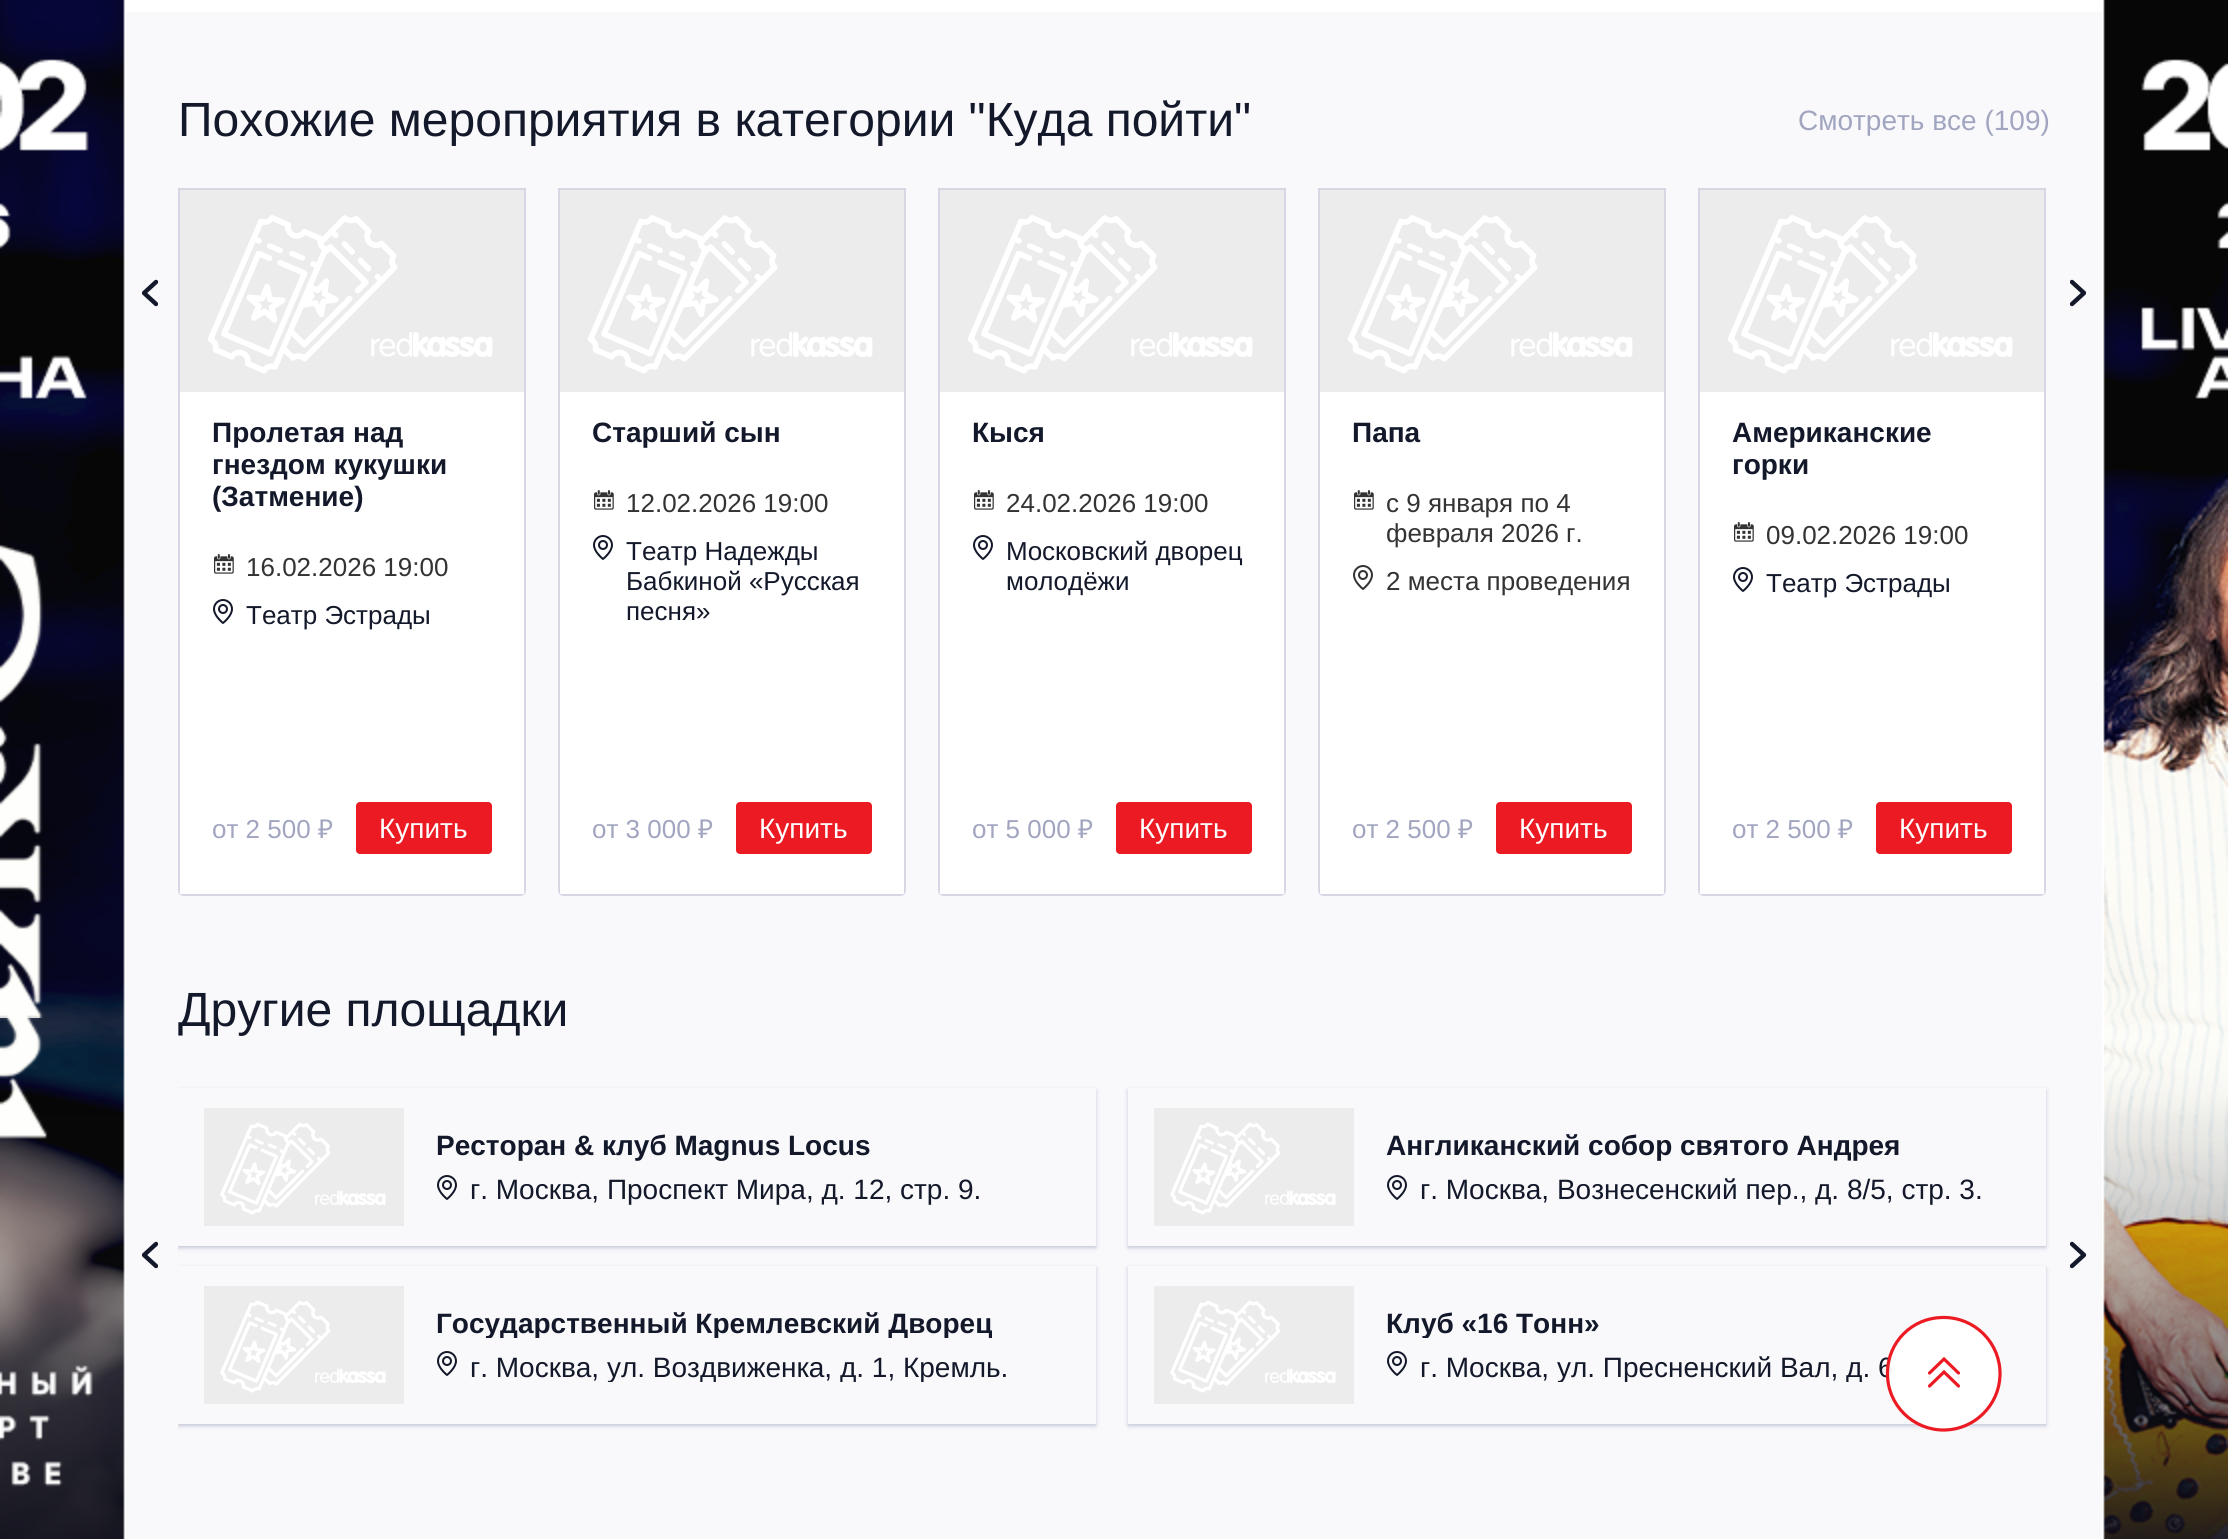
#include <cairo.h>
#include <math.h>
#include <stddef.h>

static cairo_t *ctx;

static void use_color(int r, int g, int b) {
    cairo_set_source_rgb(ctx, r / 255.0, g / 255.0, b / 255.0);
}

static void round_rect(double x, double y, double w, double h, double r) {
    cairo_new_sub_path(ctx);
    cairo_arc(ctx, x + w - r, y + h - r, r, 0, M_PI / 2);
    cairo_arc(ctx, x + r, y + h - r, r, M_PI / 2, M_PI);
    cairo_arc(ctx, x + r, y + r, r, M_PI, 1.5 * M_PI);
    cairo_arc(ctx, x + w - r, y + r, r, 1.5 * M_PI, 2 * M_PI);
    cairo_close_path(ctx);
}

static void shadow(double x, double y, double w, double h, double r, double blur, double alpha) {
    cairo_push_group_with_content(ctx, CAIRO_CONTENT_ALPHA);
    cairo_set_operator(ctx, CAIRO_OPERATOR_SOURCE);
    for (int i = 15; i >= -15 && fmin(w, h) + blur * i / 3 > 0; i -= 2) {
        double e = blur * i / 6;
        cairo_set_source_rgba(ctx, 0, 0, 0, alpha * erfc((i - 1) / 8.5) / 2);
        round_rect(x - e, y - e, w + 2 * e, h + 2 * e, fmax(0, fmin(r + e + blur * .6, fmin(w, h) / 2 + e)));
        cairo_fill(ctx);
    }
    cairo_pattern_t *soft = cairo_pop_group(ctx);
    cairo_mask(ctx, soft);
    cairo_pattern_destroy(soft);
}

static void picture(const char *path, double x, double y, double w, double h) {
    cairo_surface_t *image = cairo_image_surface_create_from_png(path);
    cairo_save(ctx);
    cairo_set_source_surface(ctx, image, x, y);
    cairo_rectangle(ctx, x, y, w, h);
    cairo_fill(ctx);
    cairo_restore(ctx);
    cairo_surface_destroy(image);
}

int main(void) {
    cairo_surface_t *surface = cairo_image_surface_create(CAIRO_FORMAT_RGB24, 2228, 1539);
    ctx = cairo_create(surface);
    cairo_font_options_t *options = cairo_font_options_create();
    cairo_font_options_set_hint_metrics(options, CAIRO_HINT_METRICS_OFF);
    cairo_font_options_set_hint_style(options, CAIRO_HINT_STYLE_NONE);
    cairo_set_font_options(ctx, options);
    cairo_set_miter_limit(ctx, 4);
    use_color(255, 255, 255);
    cairo_paint(ctx);
    picture("img1.png", 0, 0, 2228, 1539);
    use_color(249, 249, 251);
    cairo_rectangle(ctx, 126, 12, 1976, 1527);
    cairo_fill(ctx);
    cairo_select_font_face(ctx, "Liberation Sans", CAIRO_FONT_SLANT_NORMAL, CAIRO_FONT_WEIGHT_NORMAL);
    cairo_set_font_size(ctx, 48);
    use_color(19, 25, 42);
    cairo_move_to(ctx, 178, 136);
    cairo_show_text(ctx, "Похожие мероприятия в категории \"Куда пойти\"");
    cairo_set_font_size(ctx, 28);
    use_color(161, 165, 192);
    cairo_move_to(ctx, 1798, 130);
    cairo_show_text(ctx, "Смотреть все (109)");
    cairo_save(ctx);
    cairo_rectangle(ctx, 142, 278, 16, 30);
    cairo_clip(ctx);
    cairo_new_path(ctx);
    cairo_move_to(ctx, 156, 282);
    cairo_line_to(ctx, 144, 293);
    cairo_line_to(ctx, 156, 304);
    use_color(19, 25, 42);
    cairo_set_line_width(ctx, 4.4);
    cairo_set_line_cap(ctx, CAIRO_LINE_CAP_ROUND);
    cairo_set_line_join(ctx, CAIRO_LINE_JOIN_ROUND);
    cairo_stroke(ctx);
    cairo_restore(ctx);
    cairo_save(ctx);
    cairo_rectangle(ctx, 2070, 278, 16, 30);
    cairo_clip(ctx);
    cairo_new_path(ctx);
    cairo_move_to(ctx, 2072, 282);
    cairo_line_to(ctx, 2084, 293);
    cairo_line_to(ctx, 2072, 304);
    use_color(19, 25, 42);
    cairo_set_line_width(ctx, 4.4);
    cairo_set_line_cap(ctx, CAIRO_LINE_CAP_ROUND);
    cairo_set_line_join(ctx, CAIRO_LINE_JOIN_ROUND);
    cairo_stroke(ctx);
    cairo_restore(ctx);
    cairo_new_path(ctx);
    cairo_move_to(ctx, 179, 189);
    cairo_line_to(ctx, 525, 189);
    cairo_line_to(ctx, 525, 890);
    cairo_curve_to(ctx, 525, 893, 523, 895, 520, 895);
    cairo_line_to(ctx, 184, 895);
    cairo_curve_to(ctx, 181, 895, 179, 893, 179, 890);
    cairo_close_path(ctx);
    use_color(214, 215, 227);
    cairo_stroke(ctx);
    picture("img2.png", 180, 190, 344, 202);
    use_color(255, 255, 255);
    cairo_rectangle(ctx, 180, 392, 344, 502);
    cairo_fill(ctx);
    cairo_select_font_face(ctx, "Liberation Sans", CAIRO_FONT_SLANT_NORMAL, CAIRO_FONT_WEIGHT_BOLD);
    use_color(19, 25, 42);
    cairo_move_to(ctx, 212, 442);
    cairo_show_text(ctx, "Пролетая над");
    cairo_move_to(ctx, 212, 474);
    cairo_show_text(ctx, "гнездом кукушки");
    cairo_move_to(ctx, 212, 506);
    cairo_show_text(ctx, "(Затмение)");
    picture("img3.png", 214, 554, 20, 20);
    cairo_select_font_face(ctx, "Liberation Sans", CAIRO_FONT_SLANT_NORMAL, CAIRO_FONT_WEIGHT_NORMAL);
    cairo_set_font_size(ctx, 26);
    use_color(51, 51, 51);
    cairo_move_to(ctx, 246, 576);
    cairo_show_text(ctx, "16.02.2026 19:00");
    picture("img4.png", 213, 599, 20, 25);
    use_color(19, 25, 42);
    cairo_move_to(ctx, 246, 624);
    cairo_show_text(ctx, "Театр Эстрады");
    use_color(161, 165, 192);
    cairo_move_to(ctx, 212, 838);
    cairo_show_text(ctx, "от 2 500");
    cairo_select_font_face(ctx, "Noto Sans", CAIRO_FONT_SLANT_NORMAL, CAIRO_FONT_WEIGHT_NORMAL);
    cairo_move_to(ctx, 318, 838);
    cairo_show_text(ctx, "₽");
    use_color(236, 27, 35);
    round_rect(356, 802, 136, 52, 4);
    cairo_fill(ctx);
    cairo_select_font_face(ctx, "Liberation Sans", CAIRO_FONT_SLANT_NORMAL, CAIRO_FONT_WEIGHT_NORMAL);
    cairo_set_font_size(ctx, 28);
    use_color(255, 255, 255);
    cairo_move_to(ctx, 379, 838);
    cairo_show_text(ctx, "Купить");
    cairo_new_path(ctx);
    cairo_move_to(ctx, 559, 189);
    cairo_line_to(ctx, 905, 189);
    cairo_line_to(ctx, 905, 890);
    cairo_curve_to(ctx, 905, 893, 903, 895, 900, 895);
    cairo_line_to(ctx, 564, 895);
    cairo_curve_to(ctx, 561, 895, 559, 893, 559, 890);
    cairo_close_path(ctx);
    use_color(214, 215, 227);
    cairo_stroke(ctx);
    picture("img2.png", 560, 190, 344, 202);
    use_color(255, 255, 255);
    cairo_rectangle(ctx, 560, 392, 344, 502);
    cairo_fill(ctx);
    cairo_select_font_face(ctx, "Liberation Sans", CAIRO_FONT_SLANT_NORMAL, CAIRO_FONT_WEIGHT_BOLD);
    use_color(19, 25, 42);
    cairo_move_to(ctx, 592, 442);
    cairo_show_text(ctx, "Старший сын");
    picture("img3.png", 594, 490, 20, 20);
    cairo_select_font_face(ctx, "Liberation Sans", CAIRO_FONT_SLANT_NORMAL, CAIRO_FONT_WEIGHT_NORMAL);
    cairo_set_font_size(ctx, 26);
    use_color(51, 51, 51);
    cairo_move_to(ctx, 626, 512);
    cairo_show_text(ctx, "12.02.2026 19:00");
    picture("img4.png", 593, 535, 20, 25);
    use_color(19, 25, 42);
    cairo_move_to(ctx, 626, 560);
    cairo_show_text(ctx, "Театр Надежды");
    cairo_move_to(ctx, 626, 590);
    cairo_show_text(ctx, "Бабкиной «Русская");
    cairo_move_to(ctx, 626, 620);
    cairo_show_text(ctx, "песня»");
    use_color(161, 165, 192);
    cairo_move_to(ctx, 592, 838);
    cairo_show_text(ctx, "от 3 000");
    cairo_select_font_face(ctx, "Noto Sans", CAIRO_FONT_SLANT_NORMAL, CAIRO_FONT_WEIGHT_NORMAL);
    cairo_move_to(ctx, 698, 838);
    cairo_show_text(ctx, "₽");
    use_color(236, 27, 35);
    round_rect(736, 802, 136, 52, 4);
    cairo_fill(ctx);
    cairo_select_font_face(ctx, "Liberation Sans", CAIRO_FONT_SLANT_NORMAL, CAIRO_FONT_WEIGHT_NORMAL);
    cairo_set_font_size(ctx, 28);
    use_color(255, 255, 255);
    cairo_move_to(ctx, 759, 838);
    cairo_show_text(ctx, "Купить");
    cairo_new_path(ctx);
    cairo_move_to(ctx, 939, 189);
    cairo_line_to(ctx, 1285, 189);
    cairo_line_to(ctx, 1285, 890);
    cairo_curve_to(ctx, 1285, 893, 1283, 895, 1280, 895);
    cairo_line_to(ctx, 944, 895);
    cairo_curve_to(ctx, 941, 895, 939, 893, 939, 890);
    cairo_close_path(ctx);
    use_color(214, 215, 227);
    cairo_stroke(ctx);
    picture("img2.png", 940, 190, 344, 202);
    use_color(255, 255, 255);
    cairo_rectangle(ctx, 940, 392, 344, 502);
    cairo_fill(ctx);
    cairo_select_font_face(ctx, "Liberation Sans", CAIRO_FONT_SLANT_NORMAL, CAIRO_FONT_WEIGHT_BOLD);
    use_color(19, 25, 42);
    cairo_move_to(ctx, 972, 442);
    cairo_show_text(ctx, "Кыся");
    picture("img3.png", 974, 490, 20, 20);
    cairo_select_font_face(ctx, "Liberation Sans", CAIRO_FONT_SLANT_NORMAL, CAIRO_FONT_WEIGHT_NORMAL);
    cairo_set_font_size(ctx, 26);
    use_color(51, 51, 51);
    cairo_move_to(ctx, 1006, 512);
    cairo_show_text(ctx, "24.02.2026 19:00");
    picture("img4.png", 973, 535, 20, 25);
    use_color(19, 25, 42);
    cairo_move_to(ctx, 1006, 560);
    cairo_show_text(ctx, "Московский дворец");
    cairo_move_to(ctx, 1006, 590);
    cairo_show_text(ctx, "молодёжи");
    use_color(161, 165, 192);
    cairo_move_to(ctx, 972, 838);
    cairo_show_text(ctx, "от 5 000");
    cairo_select_font_face(ctx, "Noto Sans", CAIRO_FONT_SLANT_NORMAL, CAIRO_FONT_WEIGHT_NORMAL);
    cairo_move_to(ctx, 1078, 838);
    cairo_show_text(ctx, "₽");
    use_color(236, 27, 35);
    round_rect(1116, 802, 136, 52, 4);
    cairo_fill(ctx);
    cairo_select_font_face(ctx, "Liberation Sans", CAIRO_FONT_SLANT_NORMAL, CAIRO_FONT_WEIGHT_NORMAL);
    cairo_set_font_size(ctx, 28);
    use_color(255, 255, 255);
    cairo_move_to(ctx, 1139, 838);
    cairo_show_text(ctx, "Купить");
    cairo_new_path(ctx);
    cairo_move_to(ctx, 1319, 189);
    cairo_line_to(ctx, 1665, 189);
    cairo_line_to(ctx, 1665, 890);
    cairo_curve_to(ctx, 1665, 893, 1663, 895, 1660, 895);
    cairo_line_to(ctx, 1324, 895);
    cairo_curve_to(ctx, 1321, 895, 1319, 893, 1319, 890);
    cairo_close_path(ctx);
    use_color(214, 215, 227);
    cairo_stroke(ctx);
    picture("img2.png", 1320, 190, 344, 202);
    use_color(255, 255, 255);
    cairo_rectangle(ctx, 1320, 392, 344, 502);
    cairo_fill(ctx);
    cairo_select_font_face(ctx, "Liberation Sans", CAIRO_FONT_SLANT_NORMAL, CAIRO_FONT_WEIGHT_BOLD);
    use_color(19, 25, 42);
    cairo_move_to(ctx, 1352, 442);
    cairo_show_text(ctx, "Папа");
    picture("img3.png", 1354, 490, 20, 20);
    cairo_select_font_face(ctx, "Liberation Sans", CAIRO_FONT_SLANT_NORMAL, CAIRO_FONT_WEIGHT_NORMAL);
    cairo_set_font_size(ctx, 26);
    use_color(51, 51, 51);
    cairo_move_to(ctx, 1386, 512);
    cairo_show_text(ctx, "с 9 января по 4");
    cairo_move_to(ctx, 1386, 542);
    cairo_show_text(ctx, "февраля 2026 г.");
    picture("img5.png", 1353, 565, 20, 25);
    cairo_move_to(ctx, 1386, 590);
    cairo_show_text(ctx, "2 места проведения");
    use_color(161, 165, 192);
    cairo_move_to(ctx, 1352, 838);
    cairo_show_text(ctx, "от 2 500");
    cairo_select_font_face(ctx, "Noto Sans", CAIRO_FONT_SLANT_NORMAL, CAIRO_FONT_WEIGHT_NORMAL);
    cairo_move_to(ctx, 1458, 838);
    cairo_show_text(ctx, "₽");
    use_color(236, 27, 35);
    round_rect(1496, 802, 136, 52, 4);
    cairo_fill(ctx);
    cairo_select_font_face(ctx, "Liberation Sans", CAIRO_FONT_SLANT_NORMAL, CAIRO_FONT_WEIGHT_NORMAL);
    cairo_set_font_size(ctx, 28);
    use_color(255, 255, 255);
    cairo_move_to(ctx, 1519, 838);
    cairo_show_text(ctx, "Купить");
    cairo_new_path(ctx);
    cairo_move_to(ctx, 1699, 189);
    cairo_line_to(ctx, 2045, 189);
    cairo_line_to(ctx, 2045, 890);
    cairo_curve_to(ctx, 2045, 893, 2043, 895, 2040, 895);
    cairo_line_to(ctx, 1704, 895);
    cairo_curve_to(ctx, 1701, 895, 1699, 893, 1699, 890);
    cairo_close_path(ctx);
    use_color(214, 215, 227);
    cairo_stroke(ctx);
    picture("img2.png", 1700, 190, 344, 202);
    use_color(255, 255, 255);
    cairo_rectangle(ctx, 1700, 392, 344, 502);
    cairo_fill(ctx);
    cairo_select_font_face(ctx, "Liberation Sans", CAIRO_FONT_SLANT_NORMAL, CAIRO_FONT_WEIGHT_BOLD);
    use_color(19, 25, 42);
    cairo_move_to(ctx, 1732, 442);
    cairo_show_text(ctx, "Американские");
    cairo_move_to(ctx, 1732, 474);
    cairo_show_text(ctx, "горки");
    picture("img3.png", 1734, 522, 20, 20);
    cairo_select_font_face(ctx, "Liberation Sans", CAIRO_FONT_SLANT_NORMAL, CAIRO_FONT_WEIGHT_NORMAL);
    cairo_set_font_size(ctx, 26);
    use_color(51, 51, 51);
    cairo_move_to(ctx, 1766, 544);
    cairo_show_text(ctx, "09.02.2026 19:00");
    picture("img4.png", 1733, 567, 20, 25);
    use_color(19, 25, 42);
    cairo_move_to(ctx, 1766, 592);
    cairo_show_text(ctx, "Театр Эстрады");
    use_color(161, 165, 192);
    cairo_move_to(ctx, 1732, 838);
    cairo_show_text(ctx, "от 2 500");
    cairo_select_font_face(ctx, "Noto Sans", CAIRO_FONT_SLANT_NORMAL, CAIRO_FONT_WEIGHT_NORMAL);
    cairo_move_to(ctx, 1838, 838);
    cairo_show_text(ctx, "₽");
    use_color(236, 27, 35);
    round_rect(1876, 802, 136, 52, 4);
    cairo_fill(ctx);
    cairo_select_font_face(ctx, "Liberation Sans", CAIRO_FONT_SLANT_NORMAL, CAIRO_FONT_WEIGHT_NORMAL);
    cairo_set_font_size(ctx, 28);
    use_color(255, 255, 255);
    cairo_move_to(ctx, 1899, 838);
    cairo_show_text(ctx, "Купить");
    cairo_set_font_size(ctx, 48);
    use_color(19, 25, 42);
    cairo_move_to(ctx, 178, 1026);
    cairo_show_text(ctx, "Другие площадки");
    cairo_save(ctx);
    cairo_rectangle(ctx, 142, 1240, 16, 30);
    cairo_clip(ctx);
    cairo_new_path(ctx);
    cairo_move_to(ctx, 156, 1244);
    cairo_line_to(ctx, 144, 1255);
    cairo_line_to(ctx, 156, 1266);
    cairo_set_line_width(ctx, 4.4);
    cairo_set_line_cap(ctx, CAIRO_LINE_CAP_ROUND);
    cairo_set_line_join(ctx, CAIRO_LINE_JOIN_ROUND);
    cairo_stroke(ctx);
    cairo_restore(ctx);
    cairo_save(ctx);
    cairo_rectangle(ctx, 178, 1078, 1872, 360);
    cairo_clip(ctx);
    cairo_set_fill_rule(ctx, CAIRO_FILL_RULE_EVEN_ODD);
    cairo_new_path(ctx);
    cairo_move_to(ctx, 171, 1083);
    cairo_line_to(ctx, 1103, 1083);
    cairo_line_to(ctx, 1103, 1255);
    cairo_line_to(ctx, 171, 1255);
    cairo_close_path(ctx);
    cairo_move_to(ctx, 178, 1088);
    cairo_line_to(ctx, 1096, 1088);
    cairo_line_to(ctx, 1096, 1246);
    cairo_line_to(ctx, 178, 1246);
    cairo_close_path(ctx);
    cairo_clip(ctx);
    use_color(161, 165, 192);
    shadow(178, 1090, 918, 158, 0, 2, 0.6);
    cairo_restore(ctx);
    picture("img6.png", 204, 1108, 200, 118);
    cairo_select_font_face(ctx, "Liberation Sans", CAIRO_FONT_SLANT_NORMAL, CAIRO_FONT_WEIGHT_BOLD);
    cairo_set_font_size(ctx, 28);
    cairo_move_to(ctx, 436, 1155);
    cairo_show_text(ctx, "Ресторан & клуб Magnus Locus");
    picture("img7.png", 437, 1175, 20, 25);
    cairo_select_font_face(ctx, "Liberation Sans", CAIRO_FONT_SLANT_NORMAL, CAIRO_FONT_WEIGHT_NORMAL);
    cairo_move_to(ctx, 470, 1199);
    cairo_show_text(ctx, "г. Москва, Проспект Мира, д. 12, стр. 9.");
    cairo_save(ctx);
    cairo_rectangle(ctx, 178, 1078, 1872, 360);
    cairo_clip(ctx);
    cairo_set_fill_rule(ctx, CAIRO_FILL_RULE_EVEN_ODD);
    cairo_new_path(ctx);
    cairo_move_to(ctx, 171, 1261);
    cairo_line_to(ctx, 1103, 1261);
    cairo_line_to(ctx, 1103, 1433);
    cairo_line_to(ctx, 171, 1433);
    cairo_close_path(ctx);
    cairo_move_to(ctx, 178, 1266);
    cairo_line_to(ctx, 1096, 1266);
    cairo_line_to(ctx, 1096, 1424);
    cairo_line_to(ctx, 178, 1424);
    cairo_close_path(ctx);
    cairo_clip(ctx);
    use_color(161, 165, 192);
    shadow(178, 1268, 918, 158, 0, 2, 0.6);
    cairo_restore(ctx);
    picture("img6.png", 204, 1286, 200, 118);
    cairo_save(ctx);
    cairo_rectangle(ctx, 436, 1306, 634, 32);
    cairo_clip(ctx);
    cairo_select_font_face(ctx, "Liberation Sans", CAIRO_FONT_SLANT_NORMAL, CAIRO_FONT_WEIGHT_BOLD);
    cairo_move_to(ctx, 436, 1333);
    cairo_show_text(ctx, "Государственный Кремлевский Дворец");
    cairo_restore(ctx);
    picture("img7.png", 437, 1351, 20, 25);
    cairo_save(ctx);
    cairo_rectangle(ctx, 436, 1350, 634, 32);
    cairo_clip(ctx);
    cairo_move_to(ctx, 470, 1377);
    cairo_show_text(ctx, "г. Москва, ул. Воздвиженка, д. 1, Кремль.");
    cairo_restore(ctx);
    cairo_save(ctx);
    cairo_set_fill_rule(ctx, CAIRO_FILL_RULE_EVEN_ODD);
    cairo_new_path(ctx);
    cairo_move_to(ctx, 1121, 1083);
    cairo_line_to(ctx, 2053, 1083);
    cairo_line_to(ctx, 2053, 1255);
    cairo_line_to(ctx, 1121, 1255);
    cairo_close_path(ctx);
    cairo_move_to(ctx, 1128, 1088);
    cairo_line_to(ctx, 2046, 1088);
    cairo_line_to(ctx, 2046, 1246);
    cairo_line_to(ctx, 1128, 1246);
    cairo_close_path(ctx);
    cairo_clip(ctx);
    use_color(161, 165, 192);
    shadow(1128, 1090, 918, 158, 0, 2, 0.6);
    cairo_restore(ctx);
    picture("img6.png", 1154, 1108, 200, 118);
    cairo_select_font_face(ctx, "Liberation Sans", CAIRO_FONT_SLANT_NORMAL, CAIRO_FONT_WEIGHT_BOLD);
    cairo_move_to(ctx, 1386, 1155);
    cairo_show_text(ctx, "Англиканский собор святого Андрея");
    picture("img7.png", 1387, 1175, 20, 25);
    cairo_select_font_face(ctx, "Liberation Sans", CAIRO_FONT_SLANT_NORMAL, CAIRO_FONT_WEIGHT_NORMAL);
    cairo_move_to(ctx, 1420, 1199);
    cairo_show_text(ctx, "г. Москва, Вознесенский пер., д. 8/5, стр. 3.");
    cairo_save(ctx);
    cairo_set_fill_rule(ctx, CAIRO_FILL_RULE_EVEN_ODD);
    cairo_new_path(ctx);
    cairo_move_to(ctx, 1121, 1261);
    cairo_line_to(ctx, 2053, 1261);
    cairo_line_to(ctx, 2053, 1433);
    cairo_line_to(ctx, 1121, 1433);
    cairo_close_path(ctx);
    cairo_move_to(ctx, 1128, 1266);
    cairo_line_to(ctx, 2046, 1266);
    cairo_line_to(ctx, 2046, 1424);
    cairo_line_to(ctx, 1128, 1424);
    cairo_close_path(ctx);
    cairo_clip(ctx);
    use_color(161, 165, 192);
    shadow(1128, 1268, 918, 158, 0, 2, 0.6);
    cairo_restore(ctx);
    picture("img6.png", 1154, 1286, 200, 118);
    cairo_save(ctx);
    cairo_rectangle(ctx, 1386, 1306, 634, 32);
    cairo_clip(ctx);
    cairo_select_font_face(ctx, "Liberation Sans", CAIRO_FONT_SLANT_NORMAL, CAIRO_FONT_WEIGHT_BOLD);
    cairo_move_to(ctx, 1386, 1333);
    cairo_show_text(ctx, "Клуб «16 Тонн»");
    cairo_restore(ctx);
    picture("img7.png", 1387, 1351, 20, 25);
    cairo_save(ctx);
    cairo_rectangle(ctx, 1386, 1350, 634, 32);
    cairo_clip(ctx);
    cairo_move_to(ctx, 1420, 1377);
    cairo_show_text(ctx, "г. Москва, ул. Пресненский Вал, д. 6");
    cairo_restore(ctx);
    cairo_save(ctx);
    cairo_rectangle(ctx, 2070, 1240, 16, 30);
    cairo_clip(ctx);
    cairo_new_path(ctx);
    cairo_move_to(ctx, 2072, 1244);
    cairo_line_to(ctx, 2084, 1255);
    cairo_line_to(ctx, 2072, 1266);
    cairo_set_line_width(ctx, 4.4);
    cairo_set_line_cap(ctx, CAIRO_LINE_CAP_ROUND);
    cairo_set_line_join(ctx, CAIRO_LINE_JOIN_ROUND);
    cairo_stroke(ctx);
    cairo_restore(ctx);
    cairo_set_source_rgba(ctx, 1, 1, 1, 0.95);
    cairo_new_path(ctx);
    cairo_move_to(ctx, 1945, 1430);
    cairo_curve_to(ctx, 1975, 1429, 1999, 1405, 2000, 1375);
    cairo_curve_to(ctx, 2001, 1343, 1974, 1316, 1942, 1317);
    cairo_curve_to(ctx, 1912, 1318, 1888, 1342, 1887, 1372);
    cairo_curve_to(ctx, 1886, 1404, 1913, 1431, 1945, 1430);
    cairo_close_path(ctx);
    cairo_fill(ctx);
    cairo_new_path(ctx);
    cairo_move_to(ctx, 1945.5, 1430);
    cairo_curve_to(ctx, 1975, 1429, 1999, 1405, 2000, 1375.5);
    cairo_curve_to(ctx, 2001, 1343, 1974.5, 1316.5, 1942, 1317.5);
    cairo_curve_to(ctx, 1912, 1318, 1888, 1342, 1887.5, 1372);
    cairo_curve_to(ctx, 1886.5, 1404.5, 1913, 1431, 1945.5, 1430);
    cairo_close_path(ctx);
    use_color(236, 27, 35);
    cairo_set_line_width(ctx, 3.2);
    cairo_stroke(ctx);
    cairo_new_path(ctx);
    cairo_move_to(ctx, 1929.5, 1373);
    cairo_line_to(ctx, 1944, 1359);
    cairo_line_to(ctx, 1958.5, 1373);
    cairo_move_to(ctx, 1929.5, 1386);
    cairo_line_to(ctx, 1944, 1372);
    cairo_line_to(ctx, 1958.5, 1386);
    cairo_set_line_cap(ctx, CAIRO_LINE_CAP_ROUND);
    cairo_stroke(ctx);
    cairo_surface_write_to_png(surface, "result.png");
    cairo_font_options_destroy(options);
    cairo_destroy(ctx);
    cairo_surface_destroy(surface);
    return 0;
}
